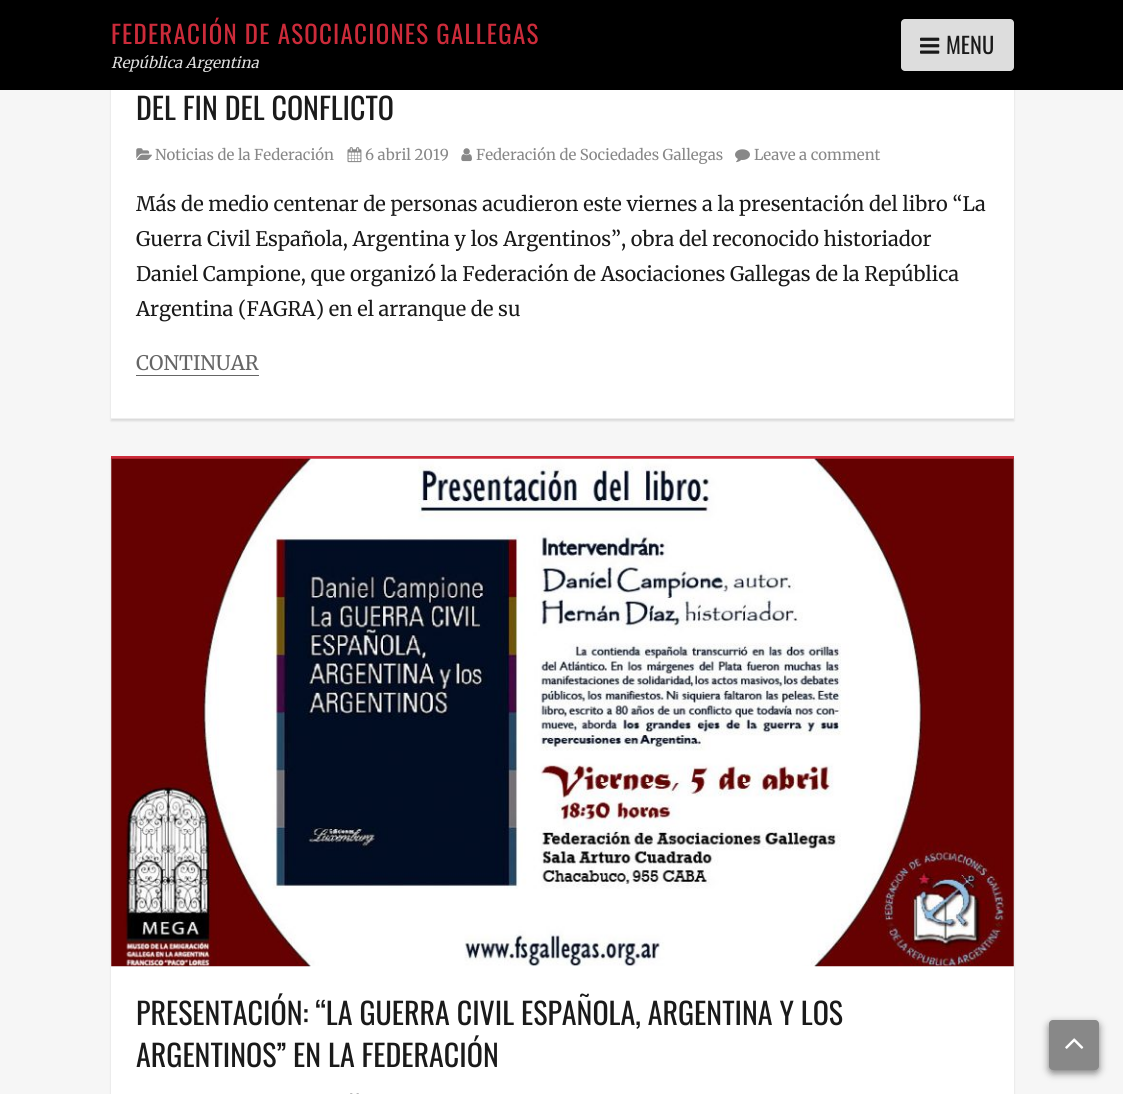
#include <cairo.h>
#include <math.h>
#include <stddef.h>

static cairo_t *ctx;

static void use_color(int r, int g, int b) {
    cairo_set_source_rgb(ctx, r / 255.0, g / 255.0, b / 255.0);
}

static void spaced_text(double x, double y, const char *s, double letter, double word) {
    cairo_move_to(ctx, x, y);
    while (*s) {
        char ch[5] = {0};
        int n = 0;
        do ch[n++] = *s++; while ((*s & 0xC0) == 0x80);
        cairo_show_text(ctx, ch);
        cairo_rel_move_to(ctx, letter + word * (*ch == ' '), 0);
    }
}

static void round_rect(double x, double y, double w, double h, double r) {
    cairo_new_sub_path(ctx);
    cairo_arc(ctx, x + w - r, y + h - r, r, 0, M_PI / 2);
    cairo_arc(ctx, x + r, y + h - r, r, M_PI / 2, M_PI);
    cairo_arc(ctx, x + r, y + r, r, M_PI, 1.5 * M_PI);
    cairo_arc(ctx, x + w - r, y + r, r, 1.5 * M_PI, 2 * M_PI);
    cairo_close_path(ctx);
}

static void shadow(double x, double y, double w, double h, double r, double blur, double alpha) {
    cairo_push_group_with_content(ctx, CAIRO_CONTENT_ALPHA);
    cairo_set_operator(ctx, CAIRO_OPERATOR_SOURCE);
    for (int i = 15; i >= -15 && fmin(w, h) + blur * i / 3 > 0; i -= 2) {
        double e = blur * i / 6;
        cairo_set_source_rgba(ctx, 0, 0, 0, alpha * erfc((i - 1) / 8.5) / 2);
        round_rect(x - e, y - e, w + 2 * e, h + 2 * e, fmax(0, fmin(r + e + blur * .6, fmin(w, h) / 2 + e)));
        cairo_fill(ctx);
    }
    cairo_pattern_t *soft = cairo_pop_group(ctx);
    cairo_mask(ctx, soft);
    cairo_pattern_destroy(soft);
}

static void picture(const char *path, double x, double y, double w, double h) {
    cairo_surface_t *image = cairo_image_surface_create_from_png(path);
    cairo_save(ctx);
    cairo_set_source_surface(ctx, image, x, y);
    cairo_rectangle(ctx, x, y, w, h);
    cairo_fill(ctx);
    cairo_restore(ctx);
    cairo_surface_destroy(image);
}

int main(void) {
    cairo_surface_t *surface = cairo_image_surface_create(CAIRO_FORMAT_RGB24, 1123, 1094);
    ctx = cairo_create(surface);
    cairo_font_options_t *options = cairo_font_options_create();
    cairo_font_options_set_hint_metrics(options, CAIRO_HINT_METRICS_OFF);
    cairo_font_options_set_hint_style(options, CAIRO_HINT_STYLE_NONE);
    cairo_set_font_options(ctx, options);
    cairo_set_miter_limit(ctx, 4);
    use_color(246, 246, 246);
    cairo_paint(ctx);
    use_color(0, 0, 0);
    shadow(111, -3, 903, 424, 0, 1, 0.12);
    use_color(0, 0, 0);
    cairo_rectangle(ctx, 0, 0, 1123, 90);
    cairo_fill(ctx);
    cairo_select_font_face(ctx, "Oswald", CAIRO_FONT_SLANT_NORMAL, CAIRO_FONT_WEIGHT_NORMAL);
    cairo_set_font_size(ctx, 25);
    use_color(204, 43, 58);
    spaced_text(111, 44, "FEDERACIÓN DE ASOCIACIONES GALLEGAS", 1.25, 0);
    cairo_select_font_face(ctx, "Merriweather Light", CAIRO_FONT_SLANT_ITALIC, CAIRO_FONT_WEIGHT_NORMAL);
    cairo_set_font_size(ctx, 15);
    use_color(221, 221, 221);
    cairo_move_to(ctx, 111, 68);
    cairo_show_text(ctx, "República Argentina");
    round_rect(901, 19, 113, 52, 4);
    cairo_fill(ctx);
    picture("img1.png", 920, 37, 20, 17);
    cairo_select_font_face(ctx, "Oswald", CAIRO_FONT_SLANT_NORMAL, CAIRO_FONT_WEIGHT_NORMAL);
    cairo_set_font_size(ctx, 22.5);
    use_color(26, 26, 26);
    cairo_move_to(ctx, 946, 54);
    cairo_show_text(ctx, "MENU");
    use_color(255, 255, 255);
    cairo_rectangle(ctx, 111, 90, 903, 328);
    cairo_fill(ctx);
    use_color(238, 238, 238);
    cairo_rectangle(ctx, 111, 418, 903, 1);
    cairo_fill(ctx);
    cairo_set_font_size(ctx, 30);
    use_color(26, 26, 26);
    cairo_move_to(ctx, 136, 120);
    cairo_show_text(ctx, "DEL FIN DEL CONFLICTO");
    picture("img2.png", 136, 148, 16, 12);
    cairo_select_font_face(ctx, "Merriweather Light", CAIRO_FONT_SLANT_NORMAL, CAIRO_FONT_WEIGHT_NORMAL);
    cairo_set_font_size(ctx, 15);
    use_color(136, 136, 136);
    cairo_move_to(ctx, 155, 160);
    cairo_show_text(ctx, "Noticias de la Federación");
    picture("img3.png", 347, 147, 15, 16);
    cairo_move_to(ctx, 365, 160);
    cairo_show_text(ctx, "6 abril 2019");
    picture("img4.png", 461, 148, 11, 14);
    cairo_move_to(ctx, 476, 160);
    cairo_show_text(ctx, "Federación de Sociedades Gallegas");
    picture("img5.png", 735, 149, 15, 14);
    cairo_move_to(ctx, 754, 160);
    cairo_show_text(ctx, "Leave a comment");
    cairo_set_font_size(ctx, 20);
    use_color(26, 26, 26);
    cairo_move_to(ctx, 136, 211);
    cairo_show_text(ctx, "Más de medio centenar de personas acudieron este viernes a la presentación del libro “La");
    cairo_move_to(ctx, 136, 246);
    cairo_show_text(ctx, "Guerra Civil Española, Argentina y los Argentinos”, obra del reconocido historiador");
    cairo_move_to(ctx, 136, 281);
    cairo_show_text(ctx, "Daniel Campione, que organizó la Federación de Asociaciones Gallegas de la República");
    cairo_move_to(ctx, 136, 316);
    cairo_show_text(ctx, "Argentina (FAGRA) en el arranque de su");
    use_color(102, 102, 102);
    cairo_move_to(ctx, 136, 370);
    cairo_show_text(ctx, "CONTINUAR");
    cairo_rectangle(ctx, 136, 375, 123, 1);
    cairo_fill(ctx);
    use_color(0, 0, 0);
    shadow(111, 459, 903, 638, 0, 1, 0.12);
    use_color(255, 255, 255);
    cairo_rectangle(ctx, 111, 459, 903, 635);
    cairo_fill(ctx);
    use_color(204, 43, 58);
    cairo_rectangle(ctx, 111, 456, 903, 3);
    cairo_fill(ctx);
    picture("img6.png", 111, 458, 903, 509);
    cairo_select_font_face(ctx, "Oswald", CAIRO_FONT_SLANT_NORMAL, CAIRO_FONT_WEIGHT_NORMAL);
    cairo_set_font_size(ctx, 30);
    use_color(26, 26, 26);
    cairo_move_to(ctx, 136, 1025);
    cairo_show_text(ctx, "PRESENTACIÓN: “LA GUERRA CIVIL ESPAÑOLA, ARGENTINA Y LOS");
    cairo_move_to(ctx, 136, 1067);
    cairo_show_text(ctx, "ARGENTINOS” EN LA FEDERACIÓN");
    picture("img7.png", 350, 1093, 9, 1);
    use_color(0, 0, 0);
    shadow(1049, 1023, 50, 50, 4, 4, 0.5);
    use_color(136, 136, 136);
    round_rect(1049, 1020, 50, 50, 4);
    cairo_fill(ctx);
    picture("img8.png", 1065, 1038, 19, 11);
    cairo_surface_write_to_png(surface, "result.png");
    cairo_font_options_destroy(options);
    cairo_destroy(ctx);
    cairo_surface_destroy(surface);
    return 0;
}
